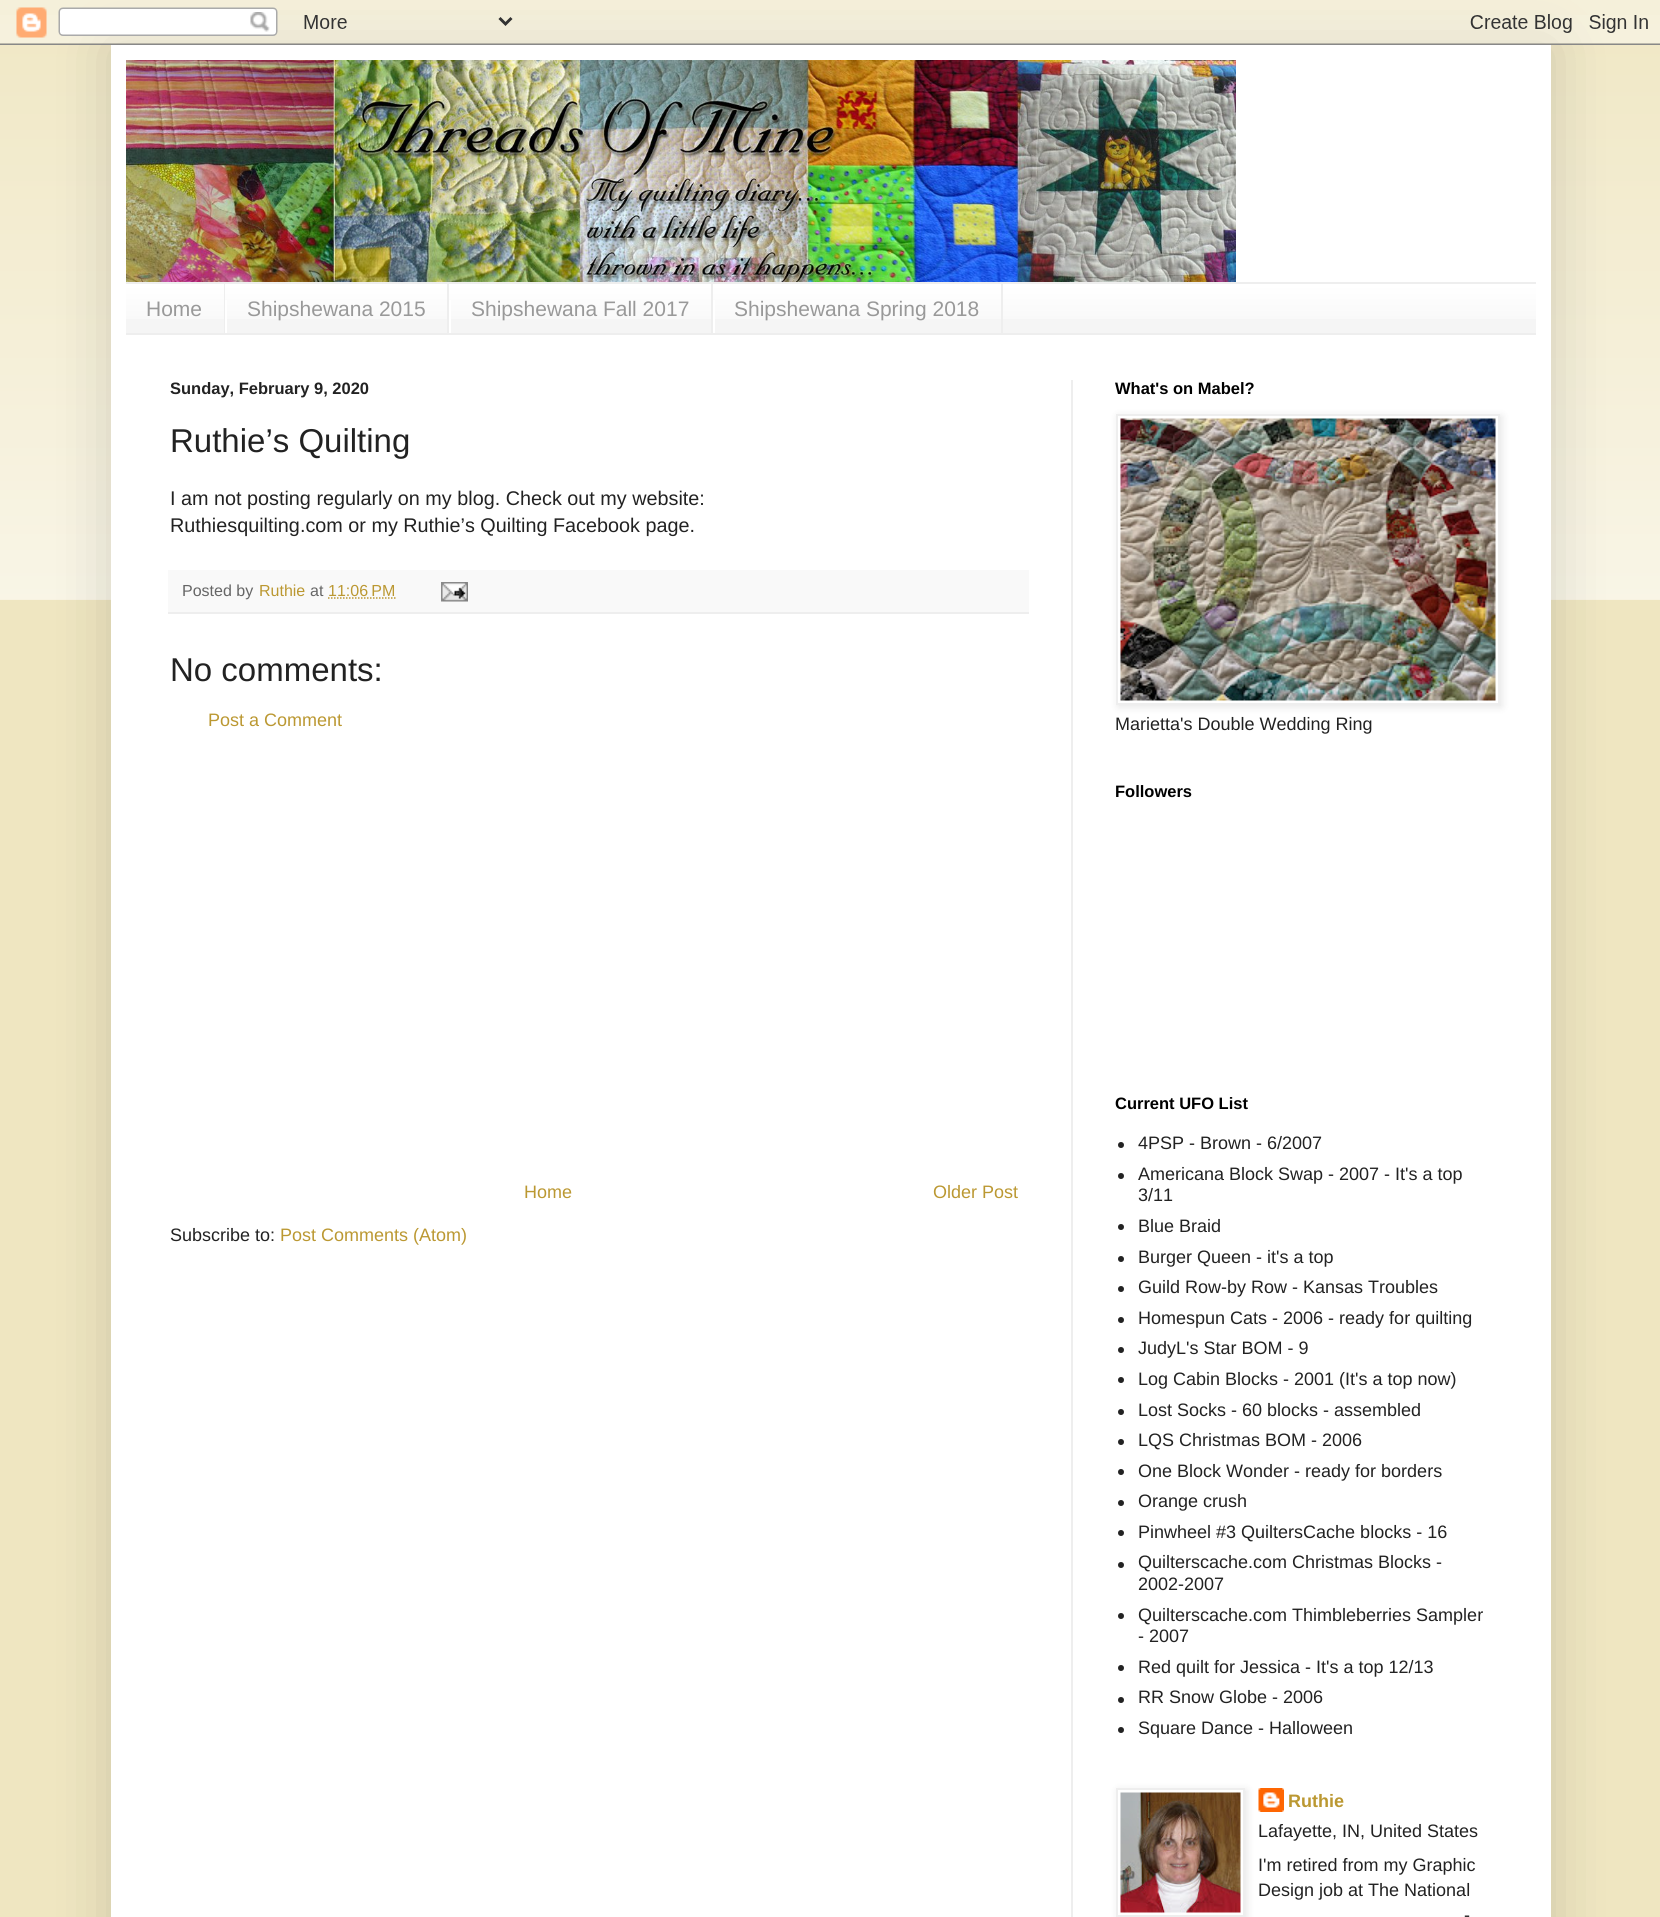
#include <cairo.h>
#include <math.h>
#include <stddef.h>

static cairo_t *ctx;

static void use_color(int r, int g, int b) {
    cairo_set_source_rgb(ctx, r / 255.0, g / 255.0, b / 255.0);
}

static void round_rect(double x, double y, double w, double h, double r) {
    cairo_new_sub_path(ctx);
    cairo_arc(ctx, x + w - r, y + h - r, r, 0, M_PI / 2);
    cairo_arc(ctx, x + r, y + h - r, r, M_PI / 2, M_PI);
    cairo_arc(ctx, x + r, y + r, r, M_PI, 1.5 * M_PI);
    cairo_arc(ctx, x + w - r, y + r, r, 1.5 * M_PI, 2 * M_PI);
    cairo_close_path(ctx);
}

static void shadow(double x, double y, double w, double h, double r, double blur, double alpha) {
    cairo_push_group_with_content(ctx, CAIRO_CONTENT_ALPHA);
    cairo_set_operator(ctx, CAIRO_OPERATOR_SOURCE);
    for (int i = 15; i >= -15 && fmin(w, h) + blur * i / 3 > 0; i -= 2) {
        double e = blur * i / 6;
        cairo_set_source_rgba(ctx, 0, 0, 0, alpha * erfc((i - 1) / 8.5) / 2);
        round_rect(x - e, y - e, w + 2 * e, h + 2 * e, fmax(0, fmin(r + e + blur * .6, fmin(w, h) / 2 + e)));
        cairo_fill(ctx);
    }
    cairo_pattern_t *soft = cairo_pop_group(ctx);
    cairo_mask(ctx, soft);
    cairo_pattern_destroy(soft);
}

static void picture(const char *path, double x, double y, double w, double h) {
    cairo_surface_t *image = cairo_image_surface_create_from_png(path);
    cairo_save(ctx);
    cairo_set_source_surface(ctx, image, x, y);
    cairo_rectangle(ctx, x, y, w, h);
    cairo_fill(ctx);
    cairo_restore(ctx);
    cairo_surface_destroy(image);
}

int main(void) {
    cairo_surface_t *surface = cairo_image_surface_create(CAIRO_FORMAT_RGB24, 1660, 1917);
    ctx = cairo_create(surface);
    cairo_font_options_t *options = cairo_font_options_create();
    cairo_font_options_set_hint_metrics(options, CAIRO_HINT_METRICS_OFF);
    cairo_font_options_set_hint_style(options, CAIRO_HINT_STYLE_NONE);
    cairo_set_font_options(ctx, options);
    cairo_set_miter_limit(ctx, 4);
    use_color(239, 230, 193);
    cairo_paint(ctx);
    picture("img2.png", 0, 15, 1660, 585);
    use_color(0, 0, 0);
    shadow(111, 45, 1440, 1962, 0, 30, 0.15);
    picture("img1.png", 0, 0, 1660, 45);
    use_color(255, 255, 255);
    cairo_rectangle(ctx, 111, 45, 1440, 1872);
    cairo_fill(ctx);
    picture("img3.png", 126, 60, 1110, 222);
    use_color(245, 245, 245);
    cairo_rectangle(ctx, 126, 285, 1410, 48);
    cairo_fill(ctx);
    picture("img4.png", 126, 284, 1410, 35);
    use_color(238, 238, 238);
    cairo_rectangle(ctx, 126, 282, 1410, 2);
    cairo_fill(ctx);
    cairo_rectangle(ctx, 126, 333, 1410, 2);
    cairo_fill(ctx);
    cairo_rectangle(ctx, 224, 284, 1, 49);
    cairo_fill(ctx);
    cairo_select_font_face(ctx, "Liberation Sans", CAIRO_FONT_SLANT_NORMAL, CAIRO_FONT_WEIGHT_NORMAL);
    cairo_set_font_size(ctx, 21);
    use_color(153, 153, 153);
    cairo_move_to(ctx, 146, 316);
    cairo_show_text(ctx, "Home");
    use_color(238, 238, 238);
    cairo_rectangle(ctx, 447, 284, 2, 49);
    cairo_fill(ctx);
    use_color(255, 255, 255);
    cairo_rectangle(ctx, 225, 300, 2, 33);
    cairo_fill(ctx);
    use_color(153, 153, 153);
    cairo_move_to(ctx, 247, 316);
    cairo_show_text(ctx, "Shipshewana 2015");
    use_color(238, 238, 238);
    cairo_rectangle(ctx, 711, 284, 2, 49);
    cairo_fill(ctx);
    use_color(255, 255, 255);
    cairo_rectangle(ctx, 449, 300, 2, 33);
    cairo_fill(ctx);
    use_color(153, 153, 153);
    cairo_move_to(ctx, 471, 316);
    cairo_show_text(ctx, "Shipshewana Fall 2017");
    use_color(238, 238, 238);
    cairo_rectangle(ctx, 1001, 284, 2, 49);
    cairo_fill(ctx);
    use_color(255, 255, 255);
    cairo_rectangle(ctx, 713, 300, 2, 33);
    cairo_fill(ctx);
    use_color(153, 153, 153);
    cairo_move_to(ctx, 734, 316);
    cairo_show_text(ctx, "Shipshewana Spring 2018");
    use_color(238, 238, 238);
    cairo_rectangle(ctx, 1071, 380, 2, 1537);
    cairo_fill(ctx);
    cairo_select_font_face(ctx, "Liberation Sans", CAIRO_FONT_SLANT_NORMAL, CAIRO_FONT_WEIGHT_BOLD);
    cairo_set_font_size(ctx, 16.5);
    use_color(34, 34, 34);
    cairo_move_to(ctx, 170, 394);
    cairo_show_text(ctx, "Sunday, February 9, 2020");
    cairo_select_font_face(ctx, "Liberation Sans", CAIRO_FONT_SLANT_NORMAL, CAIRO_FONT_WEIGHT_NORMAL);
    cairo_set_font_size(ctx, 33);
    cairo_move_to(ctx, 170, 452);
    cairo_show_text(ctx, "Ruthie’s Quilting");
    cairo_set_font_size(ctx, 19.8);
    cairo_move_to(ctx, 170, 505);
    cairo_show_text(ctx, "I am not posting regularly on my blog. Check out my website:");
    cairo_move_to(ctx, 170, 532);
    cairo_show_text(ctx, "Ruthiesquilting.com or my Ruthie’s Quilting Facebook page.");
    use_color(249, 249, 249);
    cairo_rectangle(ctx, 168, 570, 861, 42);
    cairo_fill(ctx);
    use_color(238, 238, 238);
    cairo_rectangle(ctx, 168, 612, 861, 2);
    cairo_fill(ctx);
    cairo_set_font_size(ctx, 16);
    use_color(102, 102, 102);
    cairo_move_to(ctx, 182, 596);
    cairo_show_text(ctx, "Posted by");
    use_color(187, 152, 50);
    cairo_move_to(ctx, 259, 596);
    cairo_show_text(ctx, "Ruthie");
    use_color(102, 102, 102);
    cairo_move_to(ctx, 310, 596);
    cairo_show_text(ctx, "at");
    use_color(187, 152, 50);
    cairo_move_to(ctx, 328, 596);
    cairo_show_text(ctx, "11:06 PM");
    cairo_new_path(ctx);
    cairo_move_to(ctx, 328, 598);
    cairo_line_to(ctx, 396, 598);
    cairo_set_line_width(ctx, 1.5);
    cairo_set_dash(ctx, (double[]){1.5, 1.5}, 2, 0);
    cairo_stroke(ctx);
    picture("img5.png", 441, 582, 27, 20);
    cairo_set_font_size(ctx, 33);
    use_color(34, 34, 34);
    cairo_move_to(ctx, 170, 681);
    cairo_show_text(ctx, "No comments:");
    cairo_set_font_size(ctx, 18);
    use_color(187, 152, 50);
    cairo_move_to(ctx, 208, 726);
    cairo_show_text(ctx, "Post a Comment");
    cairo_move_to(ctx, 524, 1198);
    cairo_show_text(ctx, "Home");
    cairo_move_to(ctx, 933, 1198);
    cairo_show_text(ctx, "Older Post");
    use_color(34, 34, 34);
    cairo_move_to(ctx, 170, 1241);
    cairo_show_text(ctx, "Subscribe to:");
    use_color(187, 152, 50);
    cairo_move_to(ctx, 280, 1241);
    cairo_show_text(ctx, "Post Comments (Atom)");
    cairo_select_font_face(ctx, "Liberation Sans", CAIRO_FONT_SLANT_NORMAL, CAIRO_FONT_WEIGHT_BOLD);
    cairo_set_font_size(ctx, 16.5);
    use_color(0, 0, 0);
    cairo_move_to(ctx, 1115, 394);
    cairo_show_text(ctx, "What's on Mabel?");
    cairo_save(ctx);
    cairo_set_fill_rule(ctx, CAIRO_FILL_RULE_EVEN_ODD);
    cairo_new_path(ctx);
    cairo_move_to(ctx, 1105, 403);
    cairo_line_to(ctx, 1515, 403);
    cairo_line_to(ctx, 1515, 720);
    cairo_line_to(ctx, 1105, 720);
    cairo_close_path(ctx);
    cairo_move_to(ctx, 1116, 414);
    cairo_line_to(ctx, 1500, 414);
    cairo_line_to(ctx, 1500, 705);
    cairo_line_to(ctx, 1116, 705);
    cairo_close_path(ctx);
    cairo_clip(ctx);
    use_color(0, 0, 0);
    shadow(1118, 416, 384, 291, 0, 4, 0.1);
    cairo_restore(ctx);
    cairo_rectangle(ctx, 1117, 415, 382, 289);
    use_color(238, 238, 238);
    cairo_set_line_width(ctx, 2);
    cairo_set_dash(ctx, NULL, 0, 0);
    cairo_stroke(ctx);
    picture("img6.png", 1120, 418, 376, 283);
    cairo_select_font_face(ctx, "Liberation Sans", CAIRO_FONT_SLANT_NORMAL, CAIRO_FONT_WEIGHT_NORMAL);
    cairo_set_font_size(ctx, 18);
    use_color(34, 34, 34);
    cairo_move_to(ctx, 1115, 730);
    cairo_show_text(ctx, "Marietta's Double Wedding Ring");
    cairo_select_font_face(ctx, "Liberation Sans", CAIRO_FONT_SLANT_NORMAL, CAIRO_FONT_WEIGHT_BOLD);
    cairo_set_font_size(ctx, 16.5);
    use_color(0, 0, 0);
    cairo_move_to(ctx, 1115, 797);
    cairo_show_text(ctx, "Followers");
    cairo_move_to(ctx, 1115, 1109);
    cairo_show_text(ctx, "Current UFO List");
    use_color(34, 34, 34);
    cairo_new_path(ctx);
    cairo_arc(ctx, 1121, 1145, 3, 0, 2 * M_PI);
    cairo_fill(ctx);
    cairo_select_font_face(ctx, "Liberation Sans", CAIRO_FONT_SLANT_NORMAL, CAIRO_FONT_WEIGHT_NORMAL);
    cairo_set_font_size(ctx, 18);
    cairo_move_to(ctx, 1138, 1149);
    cairo_show_text(ctx, "4PSP - Brown - 6/2007");
    cairo_new_path(ctx);
    cairo_arc(ctx, 1121, 1176, 3, 0, 2 * M_PI);
    cairo_fill(ctx);
    cairo_move_to(ctx, 1138, 1180);
    cairo_show_text(ctx, "Americana Block Swap - 2007 - It's a top");
    cairo_move_to(ctx, 1138, 1201);
    cairo_show_text(ctx, "3/11");
    cairo_new_path(ctx);
    cairo_arc(ctx, 1121, 1227, 3, 0, 2 * M_PI);
    cairo_fill(ctx);
    cairo_move_to(ctx, 1138, 1232);
    cairo_show_text(ctx, "Blue Braid");
    cairo_new_path(ctx);
    cairo_arc(ctx, 1121, 1259, 3, 0, 2 * M_PI);
    cairo_fill(ctx);
    cairo_move_to(ctx, 1138, 1263);
    cairo_show_text(ctx, "Burger Queen - it's a top");
    cairo_new_path(ctx);
    cairo_arc(ctx, 1121, 1289, 3, 0, 2 * M_PI);
    cairo_fill(ctx);
    cairo_move_to(ctx, 1138, 1293);
    cairo_show_text(ctx, "Guild Row-by Row - Kansas Troubles");
    cairo_new_path(ctx);
    cairo_arc(ctx, 1121, 1320, 3, 0, 2 * M_PI);
    cairo_fill(ctx);
    cairo_move_to(ctx, 1138, 1324);
    cairo_show_text(ctx, "Homespun Cats - 2006 - ready for quilting");
    cairo_new_path(ctx);
    cairo_arc(ctx, 1121, 1350, 3, 0, 2 * M_PI);
    cairo_fill(ctx);
    cairo_move_to(ctx, 1138, 1354);
    cairo_show_text(ctx, "JudyL's Star BOM - 9");
    cairo_new_path(ctx);
    cairo_arc(ctx, 1121, 1380, 3, 0, 2 * M_PI);
    cairo_fill(ctx);
    cairo_move_to(ctx, 1138, 1385);
    cairo_show_text(ctx, "Log Cabin Blocks - 2001 (It's a top now)");
    cairo_new_path(ctx);
    cairo_arc(ctx, 1121, 1412, 3, 0, 2 * M_PI);
    cairo_fill(ctx);
    cairo_move_to(ctx, 1138, 1416);
    cairo_show_text(ctx, "Lost Socks - 60 blocks - assembled");
    cairo_new_path(ctx);
    cairo_arc(ctx, 1121, 1442, 3, 0, 2 * M_PI);
    cairo_fill(ctx);
    cairo_move_to(ctx, 1138, 1446);
    cairo_show_text(ctx, "LQS Christmas BOM - 2006");
    cairo_new_path(ctx);
    cairo_arc(ctx, 1121, 1472, 3, 0, 2 * M_PI);
    cairo_fill(ctx);
    cairo_move_to(ctx, 1138, 1477);
    cairo_show_text(ctx, "One Block Wonder - ready for borders");
    cairo_new_path(ctx);
    cairo_arc(ctx, 1121, 1503, 3, 0, 2 * M_PI);
    cairo_fill(ctx);
    cairo_move_to(ctx, 1138, 1507);
    cairo_show_text(ctx, "Orange crush");
    cairo_new_path(ctx);
    cairo_arc(ctx, 1121, 1533, 3, 0, 2 * M_PI);
    cairo_fill(ctx);
    cairo_move_to(ctx, 1138, 1538);
    cairo_show_text(ctx, "Pinwheel #3 QuiltersCache blocks - 16");
    cairo_new_path(ctx);
    cairo_arc(ctx, 1121, 1565, 3, 0, 2 * M_PI);
    cairo_fill(ctx);
    cairo_move_to(ctx, 1138, 1568);
    cairo_show_text(ctx, "Quilterscache.com Christmas Blocks -");
    cairo_move_to(ctx, 1138, 1590);
    cairo_show_text(ctx, "2002-2007");
    cairo_new_path(ctx);
    cairo_arc(ctx, 1121, 1616, 3, 0, 2 * M_PI);
    cairo_fill(ctx);
    cairo_move_to(ctx, 1138, 1621);
    cairo_show_text(ctx, "Quilterscache.com Thimbleberries Sampler");
    cairo_move_to(ctx, 1138, 1642);
    cairo_show_text(ctx, "- 2007");
    cairo_new_path(ctx);
    cairo_arc(ctx, 1121, 1668, 3, 0, 2 * M_PI);
    cairo_fill(ctx);
    cairo_move_to(ctx, 1138, 1673);
    cairo_show_text(ctx, "Red quilt for Jessica - It's a top 12/13");
    cairo_new_path(ctx);
    cairo_arc(ctx, 1121, 1700, 3, 0, 2 * M_PI);
    cairo_fill(ctx);
    cairo_move_to(ctx, 1138, 1703);
    cairo_show_text(ctx, "RR Snow Globe - 2006");
    cairo_new_path(ctx);
    cairo_arc(ctx, 1121, 1730, 3, 0, 2 * M_PI);
    cairo_fill(ctx);
    cairo_move_to(ctx, 1138, 1734);
    cairo_show_text(ctx, "Square Dance - Halloween");
    picture("img8.png", 1258, 1788, 26, 24);
    cairo_save(ctx);
    cairo_set_fill_rule(ctx, CAIRO_FILL_RULE_EVEN_ODD);
    cairo_new_path(ctx);
    cairo_move_to(ctx, 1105, 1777);
    cairo_line_to(ctx, 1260, 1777);
    cairo_line_to(ctx, 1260, 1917);
    cairo_line_to(ctx, 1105, 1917);
    cairo_close_path(ctx);
    cairo_move_to(ctx, 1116, 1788);
    cairo_line_to(ctx, 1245, 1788);
    cairo_line_to(ctx, 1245, 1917);
    cairo_line_to(ctx, 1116, 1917);
    cairo_close_path(ctx);
    cairo_clip(ctx);
    use_color(0, 0, 0);
    shadow(1118, 1790, 129, 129, 0, 4, 0.1);
    cairo_restore(ctx);
    cairo_rectangle(ctx, 1117, 1789, 127, 127);
    use_color(238, 238, 238);
    cairo_stroke(ctx);
    picture("img7.png", 1120, 1792, 121, 121);
    cairo_select_font_face(ctx, "Liberation Sans", CAIRO_FONT_SLANT_NORMAL, CAIRO_FONT_WEIGHT_BOLD);
    use_color(187, 152, 50);
    cairo_move_to(ctx, 1288, 1807);
    cairo_show_text(ctx, "Ruthie");
    cairo_select_font_face(ctx, "Liberation Sans", CAIRO_FONT_SLANT_NORMAL, CAIRO_FONT_WEIGHT_NORMAL);
    use_color(34, 34, 34);
    cairo_move_to(ctx, 1258, 1837);
    cairo_show_text(ctx, "Lafayette, IN, United States");
    cairo_move_to(ctx, 1258, 1871);
    cairo_show_text(ctx, "I'm retired from my Graphic");
    cairo_move_to(ctx, 1258, 1896);
    cairo_show_text(ctx, "Design job at The National");
    cairo_move_to(ctx, 1464, 1921);
    cairo_show_text(ctx, "-");
    cairo_surface_write_to_png(surface, "result.png");
    cairo_font_options_destroy(options);
    cairo_destroy(ctx);
    cairo_surface_destroy(surface);
    return 0;
}
